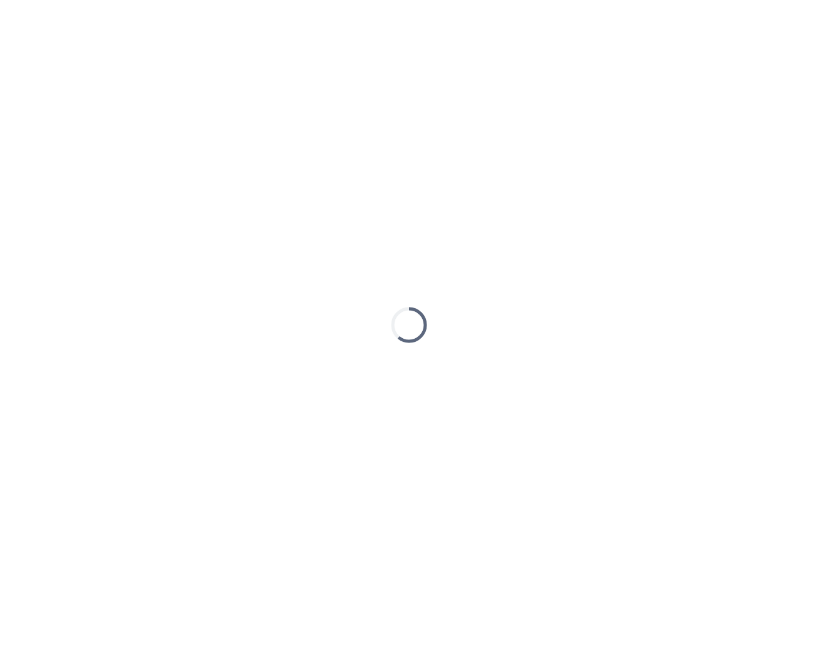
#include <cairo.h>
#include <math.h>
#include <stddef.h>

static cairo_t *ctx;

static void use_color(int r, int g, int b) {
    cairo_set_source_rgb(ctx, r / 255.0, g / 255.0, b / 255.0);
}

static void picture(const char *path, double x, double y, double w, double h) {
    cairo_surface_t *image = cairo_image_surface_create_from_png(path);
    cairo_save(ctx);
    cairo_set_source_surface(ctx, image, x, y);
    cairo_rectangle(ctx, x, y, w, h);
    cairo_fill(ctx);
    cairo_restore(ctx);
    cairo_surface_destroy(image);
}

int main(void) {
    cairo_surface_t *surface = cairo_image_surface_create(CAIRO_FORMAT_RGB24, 817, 650);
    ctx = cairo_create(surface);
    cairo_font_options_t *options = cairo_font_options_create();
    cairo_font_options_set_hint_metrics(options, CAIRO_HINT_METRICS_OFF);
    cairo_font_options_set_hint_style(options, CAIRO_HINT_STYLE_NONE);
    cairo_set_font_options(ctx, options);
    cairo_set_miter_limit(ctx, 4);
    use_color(255, 255, 255);
    cairo_paint(ctx);
    picture("img1.png", 391, 307, 36, 36);
    cairo_surface_write_to_png(surface, "result.png");
    cairo_font_options_destroy(options);
    cairo_destroy(ctx);
    cairo_surface_destroy(surface);
    return 0;
}
